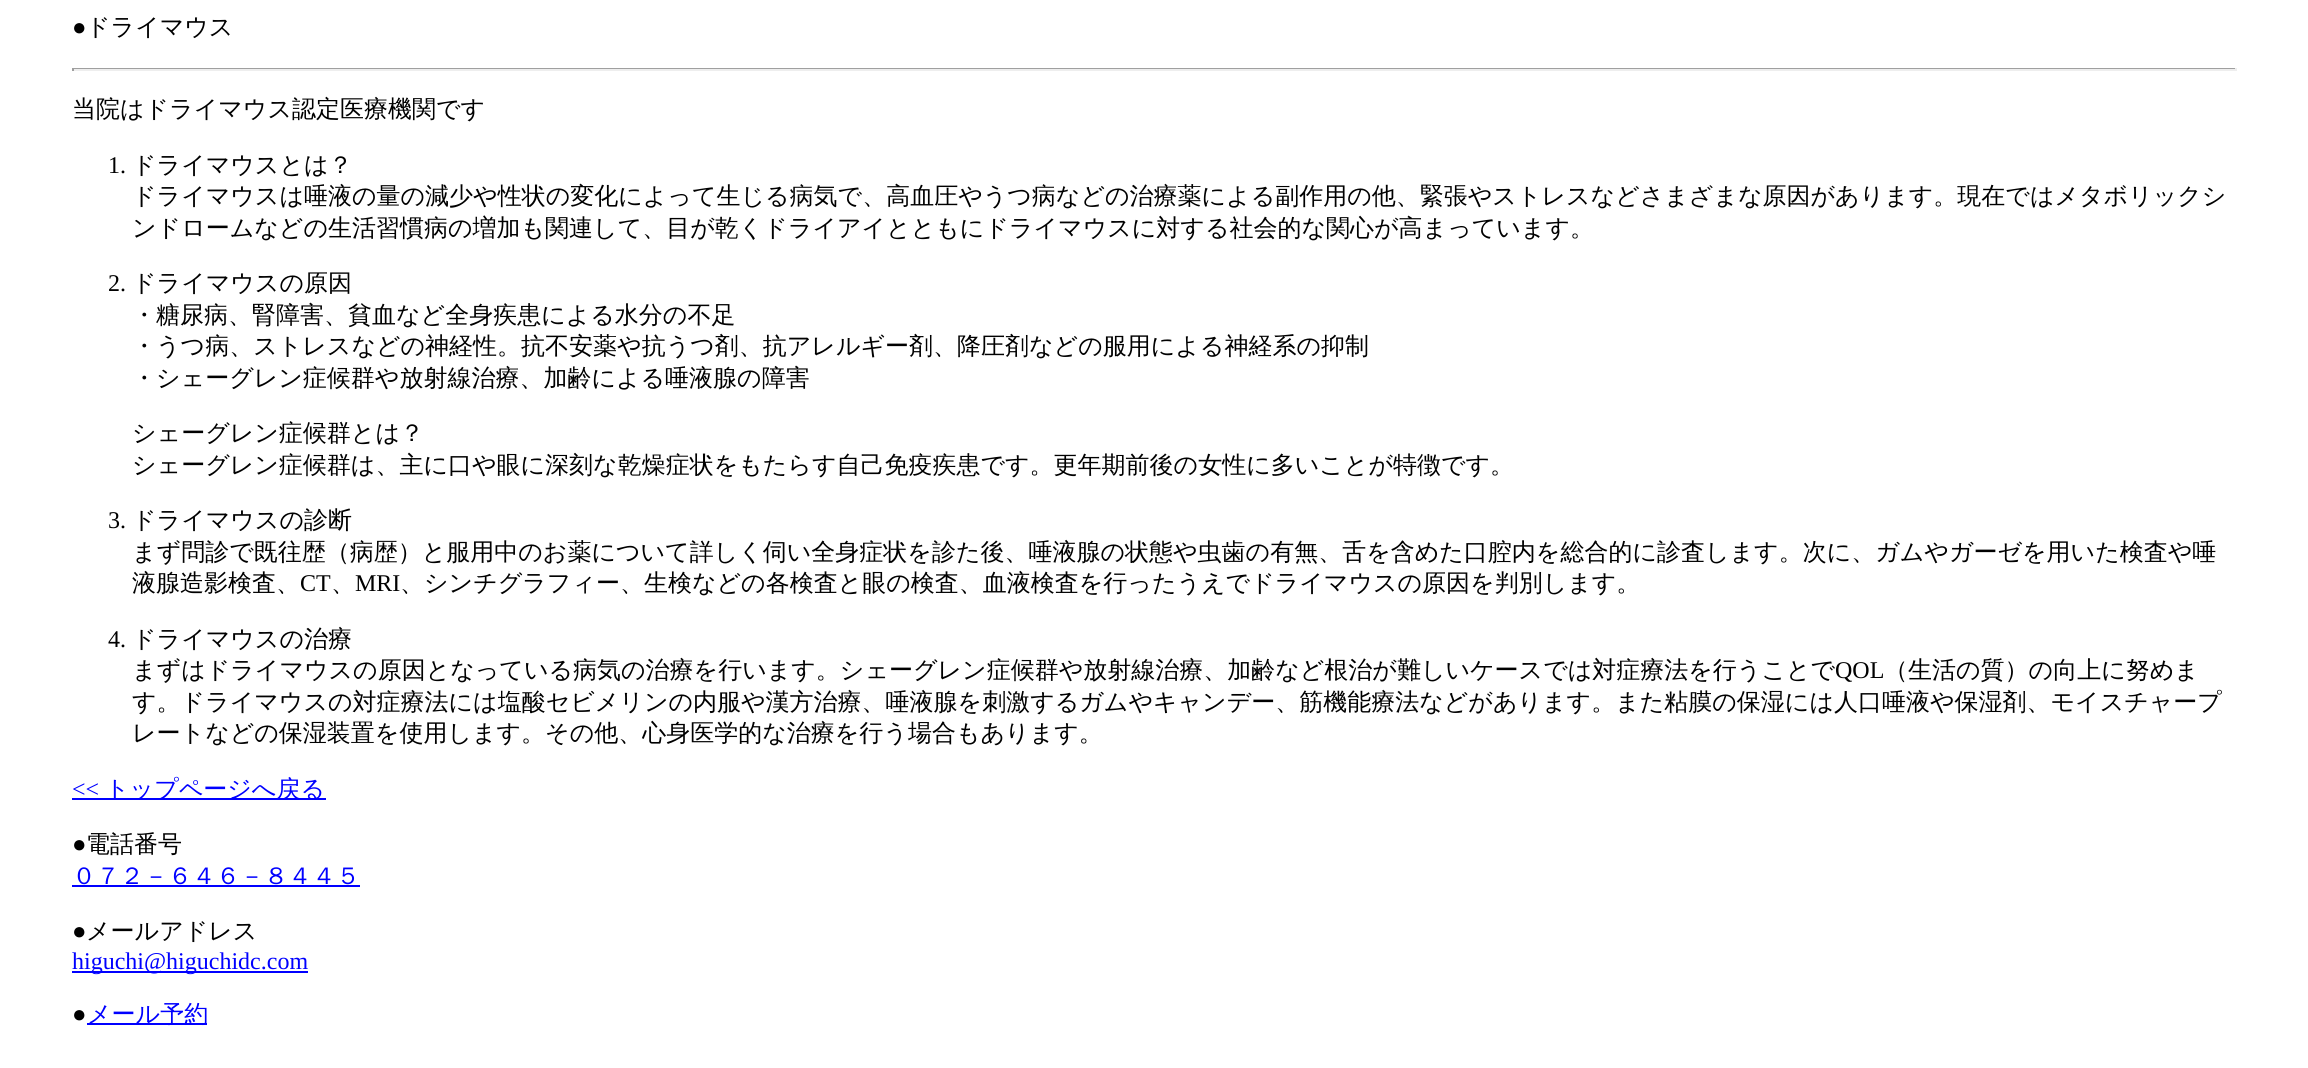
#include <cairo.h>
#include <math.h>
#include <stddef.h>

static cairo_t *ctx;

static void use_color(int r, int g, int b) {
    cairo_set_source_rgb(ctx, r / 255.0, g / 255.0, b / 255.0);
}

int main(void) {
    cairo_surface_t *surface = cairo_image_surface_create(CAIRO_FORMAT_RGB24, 2308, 1068);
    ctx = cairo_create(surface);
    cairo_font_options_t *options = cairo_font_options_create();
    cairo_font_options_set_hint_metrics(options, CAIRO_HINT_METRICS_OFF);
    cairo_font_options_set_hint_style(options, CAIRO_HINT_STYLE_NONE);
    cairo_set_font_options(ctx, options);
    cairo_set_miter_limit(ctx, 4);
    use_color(255, 255, 255);
    cairo_paint(ctx);
    cairo_select_font_face(ctx, "Liberation Serif", CAIRO_FONT_SLANT_NORMAL, CAIRO_FONT_WEIGHT_NORMAL);
    cairo_set_font_size(ctx, 24);
    use_color(0, 0, 0);
    cairo_move_to(ctx, 72, 35);
    cairo_show_text(ctx, "●");
    cairo_select_font_face(ctx, "WenQuanYi Zen Hei Medium", CAIRO_FONT_SLANT_NORMAL, CAIRO_FONT_WEIGHT_NORMAL);
    cairo_move_to(ctx, 86, 35);
    cairo_show_text(ctx, "ドライマウス");
    use_color(159, 159, 159);
    cairo_rectangle(ctx, 72, 68, 2165, 1);
    cairo_fill(ctx);
    use_color(238, 238, 238);
    cairo_rectangle(ctx, 2235, 68, 2, 3);
    cairo_fill(ctx);
    cairo_rectangle(ctx, 72, 69, 2165, 2);
    cairo_fill(ctx);
    use_color(159, 159, 159);
    cairo_rectangle(ctx, 72, 68, 2, 3);
    cairo_fill(ctx);
    use_color(0, 0, 0);
    cairo_move_to(ctx, 72, 117);
    cairo_show_text(ctx, "当院はドライマウス認定医療機関です");
    cairo_select_font_face(ctx, "Liberation Serif", CAIRO_FONT_SLANT_NORMAL, CAIRO_FONT_WEIGHT_NORMAL);
    cairo_move_to(ctx, 108, 173);
    cairo_show_text(ctx, "1.");
    cairo_select_font_face(ctx, "WenQuanYi Zen Hei Medium", CAIRO_FONT_SLANT_NORMAL, CAIRO_FONT_WEIGHT_NORMAL);
    cairo_move_to(ctx, 132, 173);
    cairo_show_text(ctx, "ドライマウスとは？");
    cairo_move_to(ctx, 132, 204);
    cairo_show_text(ctx, "ドライマウスは唾液の量の減少や性状の変化によって生じる病気で、高血圧やうつ病などの治療薬による副作用の他、緊張やストレスなどさまざまな原因があります。現在ではメタボリックシ");
    cairo_move_to(ctx, 132, 236);
    cairo_show_text(ctx, "ンドロームなどの生活習慣病の増加も関連して、目が乾くドライアイとともにドライマウスに対する社会的な関心が高まっています。");
    cairo_select_font_face(ctx, "Liberation Serif", CAIRO_FONT_SLANT_NORMAL, CAIRO_FONT_WEIGHT_NORMAL);
    cairo_move_to(ctx, 108, 291);
    cairo_show_text(ctx, "2.");
    cairo_select_font_face(ctx, "WenQuanYi Zen Hei Medium", CAIRO_FONT_SLANT_NORMAL, CAIRO_FONT_WEIGHT_NORMAL);
    cairo_move_to(ctx, 132, 291);
    cairo_show_text(ctx, "ドライマウスの原因");
    cairo_move_to(ctx, 132, 323);
    cairo_show_text(ctx, "・糖尿病、腎障害、貧血など全身疾患による水分の不足");
    cairo_move_to(ctx, 132, 354);
    cairo_show_text(ctx, "・うつ病、ストレスなどの神経性。抗不安薬や抗うつ剤、抗アレルギー剤、降圧剤などの服用による神経系の抑制");
    cairo_move_to(ctx, 132, 386);
    cairo_show_text(ctx, "・シェーグレン症候群や放射線治療、加齢による唾液腺の障害");
    cairo_move_to(ctx, 132, 441);
    cairo_show_text(ctx, "シェーグレン症候群とは？");
    cairo_move_to(ctx, 132, 473);
    cairo_show_text(ctx, "シェーグレン症候群は、主に口や眼に深刻な乾燥症状をもたらす自己免疫疾患です。更年期前後の女性に多いことが特徴です。");
    cairo_select_font_face(ctx, "Liberation Serif", CAIRO_FONT_SLANT_NORMAL, CAIRO_FONT_WEIGHT_NORMAL);
    cairo_move_to(ctx, 108, 528);
    cairo_show_text(ctx, "3.");
    cairo_select_font_face(ctx, "WenQuanYi Zen Hei Medium", CAIRO_FONT_SLANT_NORMAL, CAIRO_FONT_WEIGHT_NORMAL);
    cairo_move_to(ctx, 132, 528);
    cairo_show_text(ctx, "ドライマウスの診断");
    cairo_move_to(ctx, 132, 560);
    cairo_show_text(ctx, "まず問診で既往歴（病歴）と服用中のお薬について詳しく伺い全身症状を診た後、唾液腺の状態や虫歯の有無、舌を含めた口腔内を総合的に診査します。次に、ガムやガーゼを用いた検査や唾");
    cairo_move_to(ctx, 132, 591);
    cairo_show_text(ctx, "液腺造影検査、");
    cairo_select_font_face(ctx, "Liberation Serif", CAIRO_FONT_SLANT_NORMAL, CAIRO_FONT_WEIGHT_NORMAL);
    cairo_move_to(ctx, 300, 591);
    cairo_show_text(ctx, "CT");
    cairo_move_to(ctx, 355, 591);
    cairo_show_text(ctx, "MRI");
    cairo_select_font_face(ctx, "WenQuanYi Zen Hei Medium", CAIRO_FONT_SLANT_NORMAL, CAIRO_FONT_WEIGHT_NORMAL);
    cairo_move_to(ctx, 400, 591);
    cairo_show_text(ctx, "、シンチグラフィー、生検などの各検査と眼の検査、血液検査を行ったうえでドライマウスの原因を判別します。");
    cairo_move_to(ctx, 331, 591);
    cairo_show_text(ctx, "、");
    cairo_select_font_face(ctx, "Liberation Serif", CAIRO_FONT_SLANT_NORMAL, CAIRO_FONT_WEIGHT_NORMAL);
    cairo_move_to(ctx, 108, 647);
    cairo_show_text(ctx, "4.");
    cairo_select_font_face(ctx, "WenQuanYi Zen Hei Medium", CAIRO_FONT_SLANT_NORMAL, CAIRO_FONT_WEIGHT_NORMAL);
    cairo_move_to(ctx, 132, 647);
    cairo_show_text(ctx, "ドライマウスの治療");
    cairo_move_to(ctx, 132, 678);
    cairo_show_text(ctx, "まずはドライマウスの原因となっている病気の治療を行います。シェーグレン症候群や放射線治療、加齢など根治が難しいケースでは対症療法を行うことで");
    cairo_select_font_face(ctx, "Liberation Serif", CAIRO_FONT_SLANT_NORMAL, CAIRO_FONT_WEIGHT_NORMAL);
    cairo_move_to(ctx, 1835, 678);
    cairo_show_text(ctx, "QOL");
    cairo_select_font_face(ctx, "WenQuanYi Zen Hei Medium", CAIRO_FONT_SLANT_NORMAL, CAIRO_FONT_WEIGHT_NORMAL);
    cairo_move_to(ctx, 1884, 678);
    cairo_show_text(ctx, "（生活の質）の向上に努めま");
    cairo_move_to(ctx, 132, 710);
    cairo_show_text(ctx, "す。ドライマウスの対症療法には塩酸セビメリンの内服や漢方治療、唾液腺を刺激するガムやキャンデー、筋機能療法などがあります。また粘膜の保湿には人口唾液や保湿剤、モイスチャープ");
    cairo_move_to(ctx, 132, 741);
    cairo_show_text(ctx, "レートなどの保湿装置を使用します。その他、心身医学的な治療を行う場合もあります。");
    cairo_select_font_face(ctx, "Liberation Serif", CAIRO_FONT_SLANT_NORMAL, CAIRO_FONT_WEIGHT_NORMAL);
    use_color(0, 0, 255);
    cairo_move_to(ctx, 72, 797);
    cairo_show_text(ctx, "<<");
    cairo_rectangle(ctx, 72, 798, 254, 2);
    cairo_fill(ctx);
    cairo_select_font_face(ctx, "WenQuanYi Zen Hei Medium", CAIRO_FONT_SLANT_NORMAL, CAIRO_FONT_WEIGHT_NORMAL);
    cairo_move_to(ctx, 105, 797);
    cairo_show_text(ctx, "トップページへ戻る");
    cairo_select_font_face(ctx, "Liberation Serif", CAIRO_FONT_SLANT_NORMAL, CAIRO_FONT_WEIGHT_NORMAL);
    use_color(0, 0, 0);
    cairo_move_to(ctx, 72, 852);
    cairo_show_text(ctx, "●");
    cairo_select_font_face(ctx, "WenQuanYi Zen Hei Medium", CAIRO_FONT_SLANT_NORMAL, CAIRO_FONT_WEIGHT_NORMAL);
    cairo_move_to(ctx, 86, 852);
    cairo_show_text(ctx, "電話番号");
    use_color(0, 0, 255);
    cairo_move_to(ctx, 72, 884);
    cairo_show_text(ctx, "０７２－６４６－８４４５");
    cairo_rectangle(ctx, 72, 885, 288, 2);
    cairo_fill(ctx);
    cairo_select_font_face(ctx, "Liberation Serif", CAIRO_FONT_SLANT_NORMAL, CAIRO_FONT_WEIGHT_NORMAL);
    use_color(0, 0, 0);
    cairo_move_to(ctx, 72, 939);
    cairo_show_text(ctx, "●");
    cairo_select_font_face(ctx, "WenQuanYi Zen Hei Medium", CAIRO_FONT_SLANT_NORMAL, CAIRO_FONT_WEIGHT_NORMAL);
    cairo_move_to(ctx, 86, 939);
    cairo_show_text(ctx, "メールアドレス");
    use_color(0, 0, 255);
    cairo_rectangle(ctx, 72, 971, 236, 2);
    cairo_fill(ctx);
    cairo_select_font_face(ctx, "Liberation Serif", CAIRO_FONT_SLANT_NORMAL, CAIRO_FONT_WEIGHT_NORMAL);
    cairo_move_to(ctx, 72, 969);
    cairo_show_text(ctx, "higuchi@higuchidc.com");
    use_color(0, 0, 0);
    cairo_move_to(ctx, 72, 1022);
    cairo_show_text(ctx, "●");
    use_color(0, 0, 255);
    cairo_rectangle(ctx, 87, 1023, 120, 2);
    cairo_fill(ctx);
    cairo_select_font_face(ctx, "WenQuanYi Zen Hei Medium", CAIRO_FONT_SLANT_NORMAL, CAIRO_FONT_WEIGHT_NORMAL);
    cairo_move_to(ctx, 87, 1022);
    cairo_show_text(ctx, "メール予約");
    cairo_surface_write_to_png(surface, "result.png");
    cairo_font_options_destroy(options);
    cairo_destroy(ctx);
    cairo_surface_destroy(surface);
    return 0;
}
